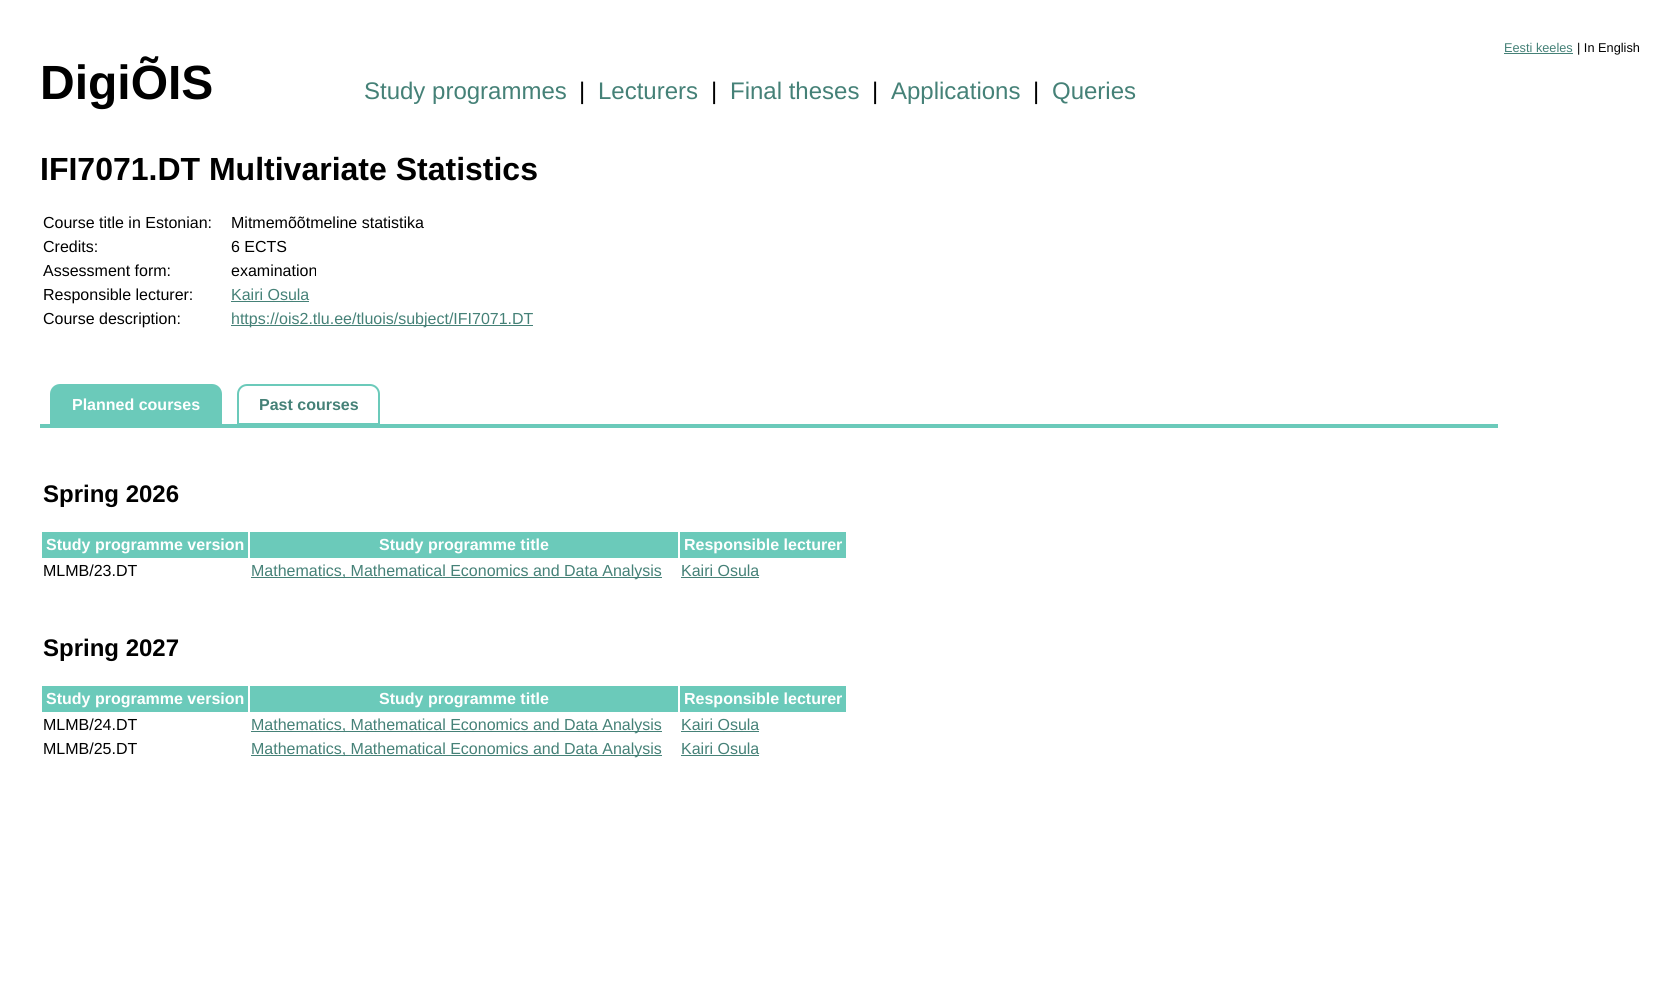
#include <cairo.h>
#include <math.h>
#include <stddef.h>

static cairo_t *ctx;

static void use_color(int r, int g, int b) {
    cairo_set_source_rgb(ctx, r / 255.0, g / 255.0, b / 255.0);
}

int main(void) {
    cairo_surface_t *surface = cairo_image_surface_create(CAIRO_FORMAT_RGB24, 1680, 981);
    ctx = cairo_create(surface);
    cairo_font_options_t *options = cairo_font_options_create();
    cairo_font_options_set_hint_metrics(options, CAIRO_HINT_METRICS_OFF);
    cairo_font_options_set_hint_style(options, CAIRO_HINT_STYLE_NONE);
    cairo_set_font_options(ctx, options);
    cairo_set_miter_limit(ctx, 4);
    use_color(255, 255, 255);
    cairo_paint(ctx);
    cairo_select_font_face(ctx, "Liberation Sans", CAIRO_FONT_SLANT_NORMAL, CAIRO_FONT_WEIGHT_NORMAL);
    cairo_set_font_size(ctx, 12.75);
    use_color(69, 129, 119);
    cairo_move_to(ctx, 1504, 52);
    cairo_show_text(ctx, "Eesti keeles");
    cairo_rectangle(ctx, 1504, 53, 69, 1);
    cairo_fill(ctx);
    use_color(0, 0, 0);
    cairo_move_to(ctx, 1577, 52);
    cairo_show_text(ctx, "| In English");
    cairo_select_font_face(ctx, "Liberation Sans", CAIRO_FONT_SLANT_NORMAL, CAIRO_FONT_WEIGHT_BOLD);
    cairo_set_font_size(ctx, 48);
    cairo_move_to(ctx, 40, 99);
    cairo_show_text(ctx, "DigiÕIS");
    cairo_select_font_face(ctx, "Liberation Sans", CAIRO_FONT_SLANT_NORMAL, CAIRO_FONT_WEIGHT_NORMAL);
    cairo_set_font_size(ctx, 24);
    use_color(69, 129, 119);
    cairo_move_to(ctx, 364, 99);
    cairo_show_text(ctx, "Study programmes");
    use_color(0, 0, 0);
    cairo_move_to(ctx, 579, 99);
    cairo_show_text(ctx, "|");
    use_color(69, 129, 119);
    cairo_move_to(ctx, 598, 99);
    cairo_show_text(ctx, "Lecturers");
    use_color(0, 0, 0);
    cairo_move_to(ctx, 711, 99);
    cairo_show_text(ctx, "|");
    use_color(69, 129, 119);
    cairo_move_to(ctx, 730, 99);
    cairo_show_text(ctx, "Final theses");
    use_color(0, 0, 0);
    cairo_move_to(ctx, 872, 99);
    cairo_show_text(ctx, "|");
    use_color(69, 129, 119);
    cairo_move_to(ctx, 891, 99);
    cairo_show_text(ctx, "Applications");
    use_color(0, 0, 0);
    cairo_move_to(ctx, 1033, 99);
    cairo_show_text(ctx, "|");
    use_color(69, 129, 119);
    cairo_move_to(ctx, 1052, 99);
    cairo_show_text(ctx, "Queries");
    cairo_select_font_face(ctx, "Liberation Sans", CAIRO_FONT_SLANT_NORMAL, CAIRO_FONT_WEIGHT_BOLD);
    cairo_set_font_size(ctx, 32);
    use_color(0, 0, 0);
    cairo_move_to(ctx, 40, 180);
    cairo_show_text(ctx, "IFI7071.DT Multivariate Statistics");
    cairo_select_font_face(ctx, "Liberation Sans", CAIRO_FONT_SLANT_NORMAL, CAIRO_FONT_WEIGHT_NORMAL);
    cairo_set_font_size(ctx, 16);
    cairo_move_to(ctx, 43, 228);
    cairo_show_text(ctx, "Course title in Estonian:");
    cairo_move_to(ctx, 231, 228);
    cairo_show_text(ctx, "Mitmemõõtmeline statistika");
    cairo_move_to(ctx, 43, 252);
    cairo_show_text(ctx, "Credits:");
    cairo_move_to(ctx, 231, 252);
    cairo_show_text(ctx, "6 ECTS");
    cairo_move_to(ctx, 43, 276);
    cairo_show_text(ctx, "Assessment form:");
    cairo_move_to(ctx, 231, 276);
    cairo_show_text(ctx, "examination");
    cairo_move_to(ctx, 43, 300);
    cairo_show_text(ctx, "Responsible lecturer:");
    use_color(69, 129, 119);
    cairo_move_to(ctx, 231, 300);
    cairo_show_text(ctx, "Kairi Osula");
    cairo_rectangle(ctx, 231, 301, 78, 1);
    cairo_fill(ctx);
    use_color(0, 0, 0);
    cairo_move_to(ctx, 43, 324);
    cairo_show_text(ctx, "Course description:");
    use_color(69, 129, 119);
    cairo_rectangle(ctx, 231, 325, 302, 1);
    cairo_fill(ctx);
    cairo_move_to(ctx, 231, 324);
    cairo_show_text(ctx, "https://ois2.tlu.ee/tluois/subject/IFI7071.DT");
    use_color(107, 202, 186);
    cairo_rectangle(ctx, 40, 424, 1458, 4);
    cairo_fill(ctx);
    cairo_new_path(ctx);
    cairo_move_to(ctx, 60, 385);
    cairo_line_to(ctx, 212, 385);
    cairo_curve_to(ctx, 217, 385, 221, 389, 221, 394);
    cairo_line_to(ctx, 221, 424);
    cairo_line_to(ctx, 51, 424);
    cairo_line_to(ctx, 51, 394);
    cairo_curve_to(ctx, 51, 389, 55, 385, 60, 385);
    cairo_close_path(ctx);
    cairo_fill_preserve(ctx);
    cairo_stroke(ctx);
    cairo_select_font_face(ctx, "Liberation Sans", CAIRO_FONT_SLANT_NORMAL, CAIRO_FONT_WEIGHT_BOLD);
    use_color(255, 255, 255);
    cairo_move_to(ctx, 72, 410);
    cairo_show_text(ctx, "Planned courses");
    cairo_new_path(ctx);
    cairo_move_to(ctx, 247, 385);
    cairo_line_to(ctx, 370, 385);
    cairo_curve_to(ctx, 375, 385, 379, 389, 379, 394);
    cairo_line_to(ctx, 379, 424);
    cairo_line_to(ctx, 238, 424);
    cairo_line_to(ctx, 238, 394);
    cairo_curve_to(ctx, 238, 389, 242, 385, 247, 385);
    cairo_close_path(ctx);
    cairo_fill_preserve(ctx);
    use_color(107, 202, 186);
    cairo_stroke(ctx);
    use_color(69, 129, 119);
    cairo_move_to(ctx, 259, 410);
    cairo_show_text(ctx, "Past courses");
    cairo_set_font_size(ctx, 24);
    use_color(0, 0, 0);
    cairo_move_to(ctx, 43, 502);
    cairo_show_text(ctx, "Spring 2026");
    use_color(107, 202, 186);
    cairo_rectangle(ctx, 42, 532, 206, 26);
    cairo_fill(ctx);
    cairo_set_font_size(ctx, 16);
    use_color(255, 255, 255);
    cairo_move_to(ctx, 46, 550);
    cairo_show_text(ctx, "Study programme version");
    use_color(107, 202, 186);
    cairo_rectangle(ctx, 250, 532, 428, 26);
    cairo_fill(ctx);
    use_color(255, 255, 255);
    cairo_move_to(ctx, 379, 550);
    cairo_show_text(ctx, "Study programme title");
    use_color(107, 202, 186);
    cairo_rectangle(ctx, 680, 532, 166, 26);
    cairo_fill(ctx);
    use_color(255, 255, 255);
    cairo_move_to(ctx, 684, 550);
    cairo_show_text(ctx, "Responsible lecturer");
    cairo_select_font_face(ctx, "Liberation Sans", CAIRO_FONT_SLANT_NORMAL, CAIRO_FONT_WEIGHT_NORMAL);
    use_color(0, 0, 0);
    cairo_move_to(ctx, 43, 576);
    cairo_show_text(ctx, "MLMB/23.DT");
    use_color(69, 129, 119);
    cairo_rectangle(ctx, 251, 577, 411, 1);
    cairo_fill(ctx);
    cairo_move_to(ctx, 251, 576);
    cairo_show_text(ctx, "Mathematics, Mathematical Economics and Data Analysis");
    cairo_move_to(ctx, 681, 576);
    cairo_show_text(ctx, "Kairi Osula");
    cairo_rectangle(ctx, 681, 577, 78, 1);
    cairo_fill(ctx);
    cairo_select_font_face(ctx, "Liberation Sans", CAIRO_FONT_SLANT_NORMAL, CAIRO_FONT_WEIGHT_BOLD);
    cairo_set_font_size(ctx, 24);
    use_color(0, 0, 0);
    cairo_move_to(ctx, 43, 656);
    cairo_show_text(ctx, "Spring 2027");
    use_color(107, 202, 186);
    cairo_rectangle(ctx, 42, 686, 206, 26);
    cairo_fill(ctx);
    cairo_set_font_size(ctx, 16);
    use_color(255, 255, 255);
    cairo_move_to(ctx, 46, 704);
    cairo_show_text(ctx, "Study programme version");
    use_color(107, 202, 186);
    cairo_rectangle(ctx, 250, 686, 428, 26);
    cairo_fill(ctx);
    use_color(255, 255, 255);
    cairo_move_to(ctx, 379, 704);
    cairo_show_text(ctx, "Study programme title");
    use_color(107, 202, 186);
    cairo_rectangle(ctx, 680, 686, 166, 26);
    cairo_fill(ctx);
    use_color(255, 255, 255);
    cairo_move_to(ctx, 684, 704);
    cairo_show_text(ctx, "Responsible lecturer");
    cairo_select_font_face(ctx, "Liberation Sans", CAIRO_FONT_SLANT_NORMAL, CAIRO_FONT_WEIGHT_NORMAL);
    use_color(0, 0, 0);
    cairo_move_to(ctx, 43, 730);
    cairo_show_text(ctx, "MLMB/24.DT");
    use_color(69, 129, 119);
    cairo_rectangle(ctx, 251, 731, 411, 1);
    cairo_fill(ctx);
    cairo_move_to(ctx, 251, 730);
    cairo_show_text(ctx, "Mathematics, Mathematical Economics and Data Analysis");
    cairo_move_to(ctx, 681, 730);
    cairo_show_text(ctx, "Kairi Osula");
    cairo_rectangle(ctx, 681, 731, 78, 1);
    cairo_fill(ctx);
    use_color(0, 0, 0);
    cairo_move_to(ctx, 43, 754);
    cairo_show_text(ctx, "MLMB/25.DT");
    use_color(69, 129, 119);
    cairo_rectangle(ctx, 251, 755, 411, 1);
    cairo_fill(ctx);
    cairo_move_to(ctx, 251, 754);
    cairo_show_text(ctx, "Mathematics, Mathematical Economics and Data Analysis");
    cairo_move_to(ctx, 681, 754);
    cairo_show_text(ctx, "Kairi Osula");
    cairo_rectangle(ctx, 681, 755, 78, 1);
    cairo_fill(ctx);
    cairo_surface_write_to_png(surface, "result.png");
    cairo_font_options_destroy(options);
    cairo_destroy(ctx);
    cairo_surface_destroy(surface);
    return 0;
}
